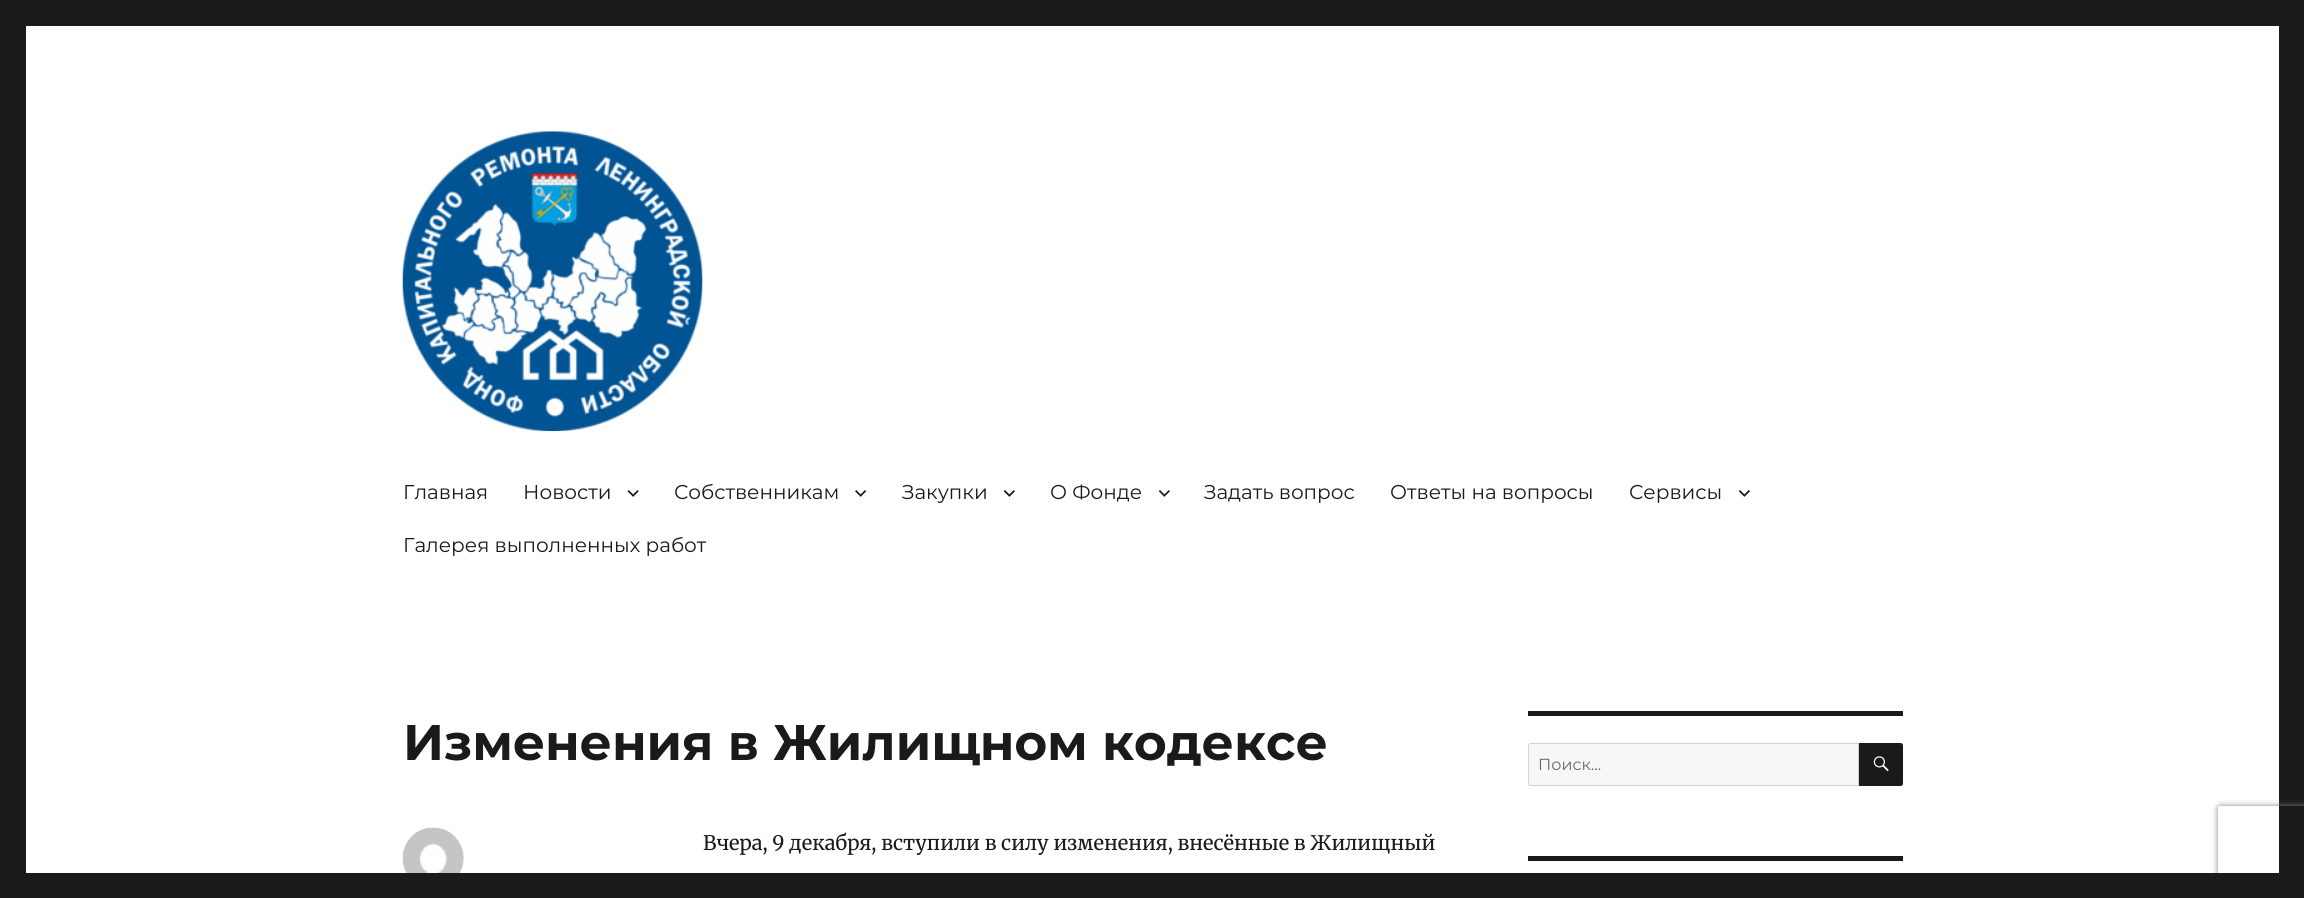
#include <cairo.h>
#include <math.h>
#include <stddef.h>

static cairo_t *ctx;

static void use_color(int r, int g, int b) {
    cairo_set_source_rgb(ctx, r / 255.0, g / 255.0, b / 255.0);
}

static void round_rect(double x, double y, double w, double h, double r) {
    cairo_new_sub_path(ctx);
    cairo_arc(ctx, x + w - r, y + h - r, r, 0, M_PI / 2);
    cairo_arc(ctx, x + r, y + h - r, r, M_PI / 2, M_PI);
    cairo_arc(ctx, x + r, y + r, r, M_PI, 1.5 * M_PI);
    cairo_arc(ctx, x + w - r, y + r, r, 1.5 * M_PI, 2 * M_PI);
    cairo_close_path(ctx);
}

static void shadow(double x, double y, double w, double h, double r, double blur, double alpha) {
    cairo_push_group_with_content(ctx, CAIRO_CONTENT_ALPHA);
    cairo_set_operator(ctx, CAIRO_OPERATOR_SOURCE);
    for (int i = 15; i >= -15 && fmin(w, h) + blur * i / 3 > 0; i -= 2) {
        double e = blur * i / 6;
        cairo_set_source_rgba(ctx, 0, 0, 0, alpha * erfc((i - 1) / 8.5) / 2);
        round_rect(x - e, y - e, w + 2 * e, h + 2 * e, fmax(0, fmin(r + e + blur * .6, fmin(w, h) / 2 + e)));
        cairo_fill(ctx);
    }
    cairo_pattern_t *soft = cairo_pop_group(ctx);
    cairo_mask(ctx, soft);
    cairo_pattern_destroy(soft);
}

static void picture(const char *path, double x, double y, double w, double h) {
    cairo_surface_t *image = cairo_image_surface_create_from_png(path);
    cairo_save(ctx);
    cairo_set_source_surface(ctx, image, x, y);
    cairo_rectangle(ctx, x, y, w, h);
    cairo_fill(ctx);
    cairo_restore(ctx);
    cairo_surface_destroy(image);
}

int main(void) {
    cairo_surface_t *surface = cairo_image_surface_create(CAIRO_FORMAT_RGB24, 2304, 898);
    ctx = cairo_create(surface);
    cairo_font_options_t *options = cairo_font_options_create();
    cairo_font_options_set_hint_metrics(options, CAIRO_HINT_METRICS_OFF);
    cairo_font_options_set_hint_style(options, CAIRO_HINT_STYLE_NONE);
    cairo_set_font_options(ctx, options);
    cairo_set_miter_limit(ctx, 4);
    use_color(26, 26, 26);
    cairo_paint(ctx);
    use_color(255, 255, 255);
    cairo_rectangle(ctx, 26, 26, 2253, 847);
    cairo_fill(ctx);
    picture("img1.png", 402, 131, 301, 301);
    cairo_select_font_face(ctx, "Montserrat", CAIRO_FONT_SLANT_NORMAL, CAIRO_FONT_WEIGHT_NORMAL);
    cairo_set_font_size(ctx, 20);
    use_color(26, 26, 26);
    cairo_move_to(ctx, 403, 499);
    cairo_show_text(ctx, "Главная");
    cairo_move_to(ctx, 523, 499);
    cairo_show_text(ctx, "Новости");
    picture("img2.png", 627, 490, 12, 7);
    cairo_move_to(ctx, 674, 499);
    cairo_show_text(ctx, "Собственникам");
    picture("img3.png", 855, 490, 12, 7);
    cairo_move_to(ctx, 902, 499);
    cairo_show_text(ctx, "Закупки");
    picture("img4.png", 1003, 490, 12, 7);
    cairo_move_to(ctx, 1050, 499);
    cairo_show_text(ctx, "О Фонде");
    picture("img4.png", 1158, 490, 12, 7);
    cairo_move_to(ctx, 1204, 499);
    cairo_show_text(ctx, "Задать вопрос");
    cairo_move_to(ctx, 1390, 499);
    cairo_show_text(ctx, "Ответы на вопросы");
    cairo_move_to(ctx, 1629, 499);
    cairo_show_text(ctx, "Сервисы");
    picture("img4.png", 1738, 490, 12, 7);
    cairo_move_to(ctx, 403, 552);
    cairo_show_text(ctx, "Галерея выполненных работ");
    cairo_select_font_face(ctx, "Montserrat", CAIRO_FONT_SLANT_NORMAL, CAIRO_FONT_WEIGHT_BOLD);
    cairo_set_font_size(ctx, 50);
    cairo_move_to(ctx, 403, 760);
    cairo_show_text(ctx, "Изменения в Жилищном кодексе");
    picture("img5.png", 402, 827, 62, 46);
    cairo_select_font_face(ctx, "Merriweather", CAIRO_FONT_SLANT_NORMAL, CAIRO_FONT_WEIGHT_NORMAL);
    cairo_set_font_size(ctx, 20);
    cairo_move_to(ctx, 703, 850);
    cairo_show_text(ctx, "Вчера, 9 декабря, вступили в силу изменения, внесённые в Жилищный");
    cairo_rectangle(ctx, 1528, 711, 375, 5);
    cairo_fill(ctx);
    use_color(247, 247, 247);
    cairo_new_path(ctx);
    cairo_move_to(ctx, 1530.5, 743.5);
    cairo_line_to(ctx, 1858.5, 743.5);
    cairo_line_to(ctx, 1858.5, 785.5);
    cairo_line_to(ctx, 1530.5, 785.5);
    cairo_curve_to(ctx, 1529.5, 785.5, 1528.5, 784.5, 1528.5, 783.5);
    cairo_line_to(ctx, 1528.5, 745.5);
    cairo_curve_to(ctx, 1528.5, 744.5, 1529.5, 743.5, 1530.5, 743.5);
    cairo_close_path(ctx);
    cairo_fill_preserve(ctx);
    use_color(209, 209, 209);
    cairo_set_line_width(ctx, 1);
    cairo_stroke(ctx);
    cairo_select_font_face(ctx, "Montserrat", CAIRO_FONT_SLANT_NORMAL, CAIRO_FONT_WEIGHT_NORMAL);
    cairo_set_font_size(ctx, 16);
    use_color(104, 104, 104);
    cairo_move_to(ctx, 1538, 770);
    cairo_show_text(ctx, "Поиск…");
    use_color(26, 26, 26);
    cairo_new_path(ctx);
    cairo_move_to(ctx, 1859, 743);
    cairo_line_to(ctx, 1900.5, 743);
    cairo_curve_to(ctx, 1902, 743, 1903, 744, 1903, 745.5);
    cairo_line_to(ctx, 1903, 783.5);
    cairo_curve_to(ctx, 1903, 785, 1902, 786, 1900.5, 786);
    cairo_line_to(ctx, 1859, 786);
    cairo_close_path(ctx);
    cairo_fill(ctx);
    picture("img6.png", 1873, 756, 16, 16);
    cairo_rectangle(ctx, 1528, 856, 375, 5);
    cairo_fill(ctx);
    cairo_save(ctx);
    cairo_set_fill_rule(ctx, CAIRO_FILL_RULE_EVEN_ODD);
    cairo_new_path(ctx);
    cairo_move_to(ctx, 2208, 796);
    cairo_line_to(ctx, 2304, 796);
    cairo_line_to(ctx, 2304, 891);
    cairo_line_to(ctx, 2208, 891);
    cairo_close_path(ctx);
    cairo_move_to(ctx, 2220.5, 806);
    cairo_line_to(ctx, 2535.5, 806);
    cairo_curve_to(ctx, 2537, 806, 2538, 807, 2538, 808.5);
    cairo_line_to(ctx, 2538, 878.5);
    cairo_curve_to(ctx, 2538, 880, 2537, 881, 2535.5, 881);
    cairo_line_to(ctx, 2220.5, 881);
    cairo_curve_to(ctx, 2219, 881, 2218, 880, 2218, 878.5);
    cairo_line_to(ctx, 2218, 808.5);
    cairo_curve_to(ctx, 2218, 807, 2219, 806, 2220.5, 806);
    cairo_close_path(ctx);
    cairo_clip(ctx);
    use_color(128, 128, 128);
    shadow(2218, 806, 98, 75, 2.5, 3, 1);
    cairo_restore(ctx);
    cairo_rectangle(ctx, 2212, 873, 92, 14);
    cairo_fill(ctx);
    cairo_surface_write_to_png(surface, "result.png");
    cairo_font_options_destroy(options);
    cairo_destroy(ctx);
    cairo_surface_destroy(surface);
    return 0;
}
